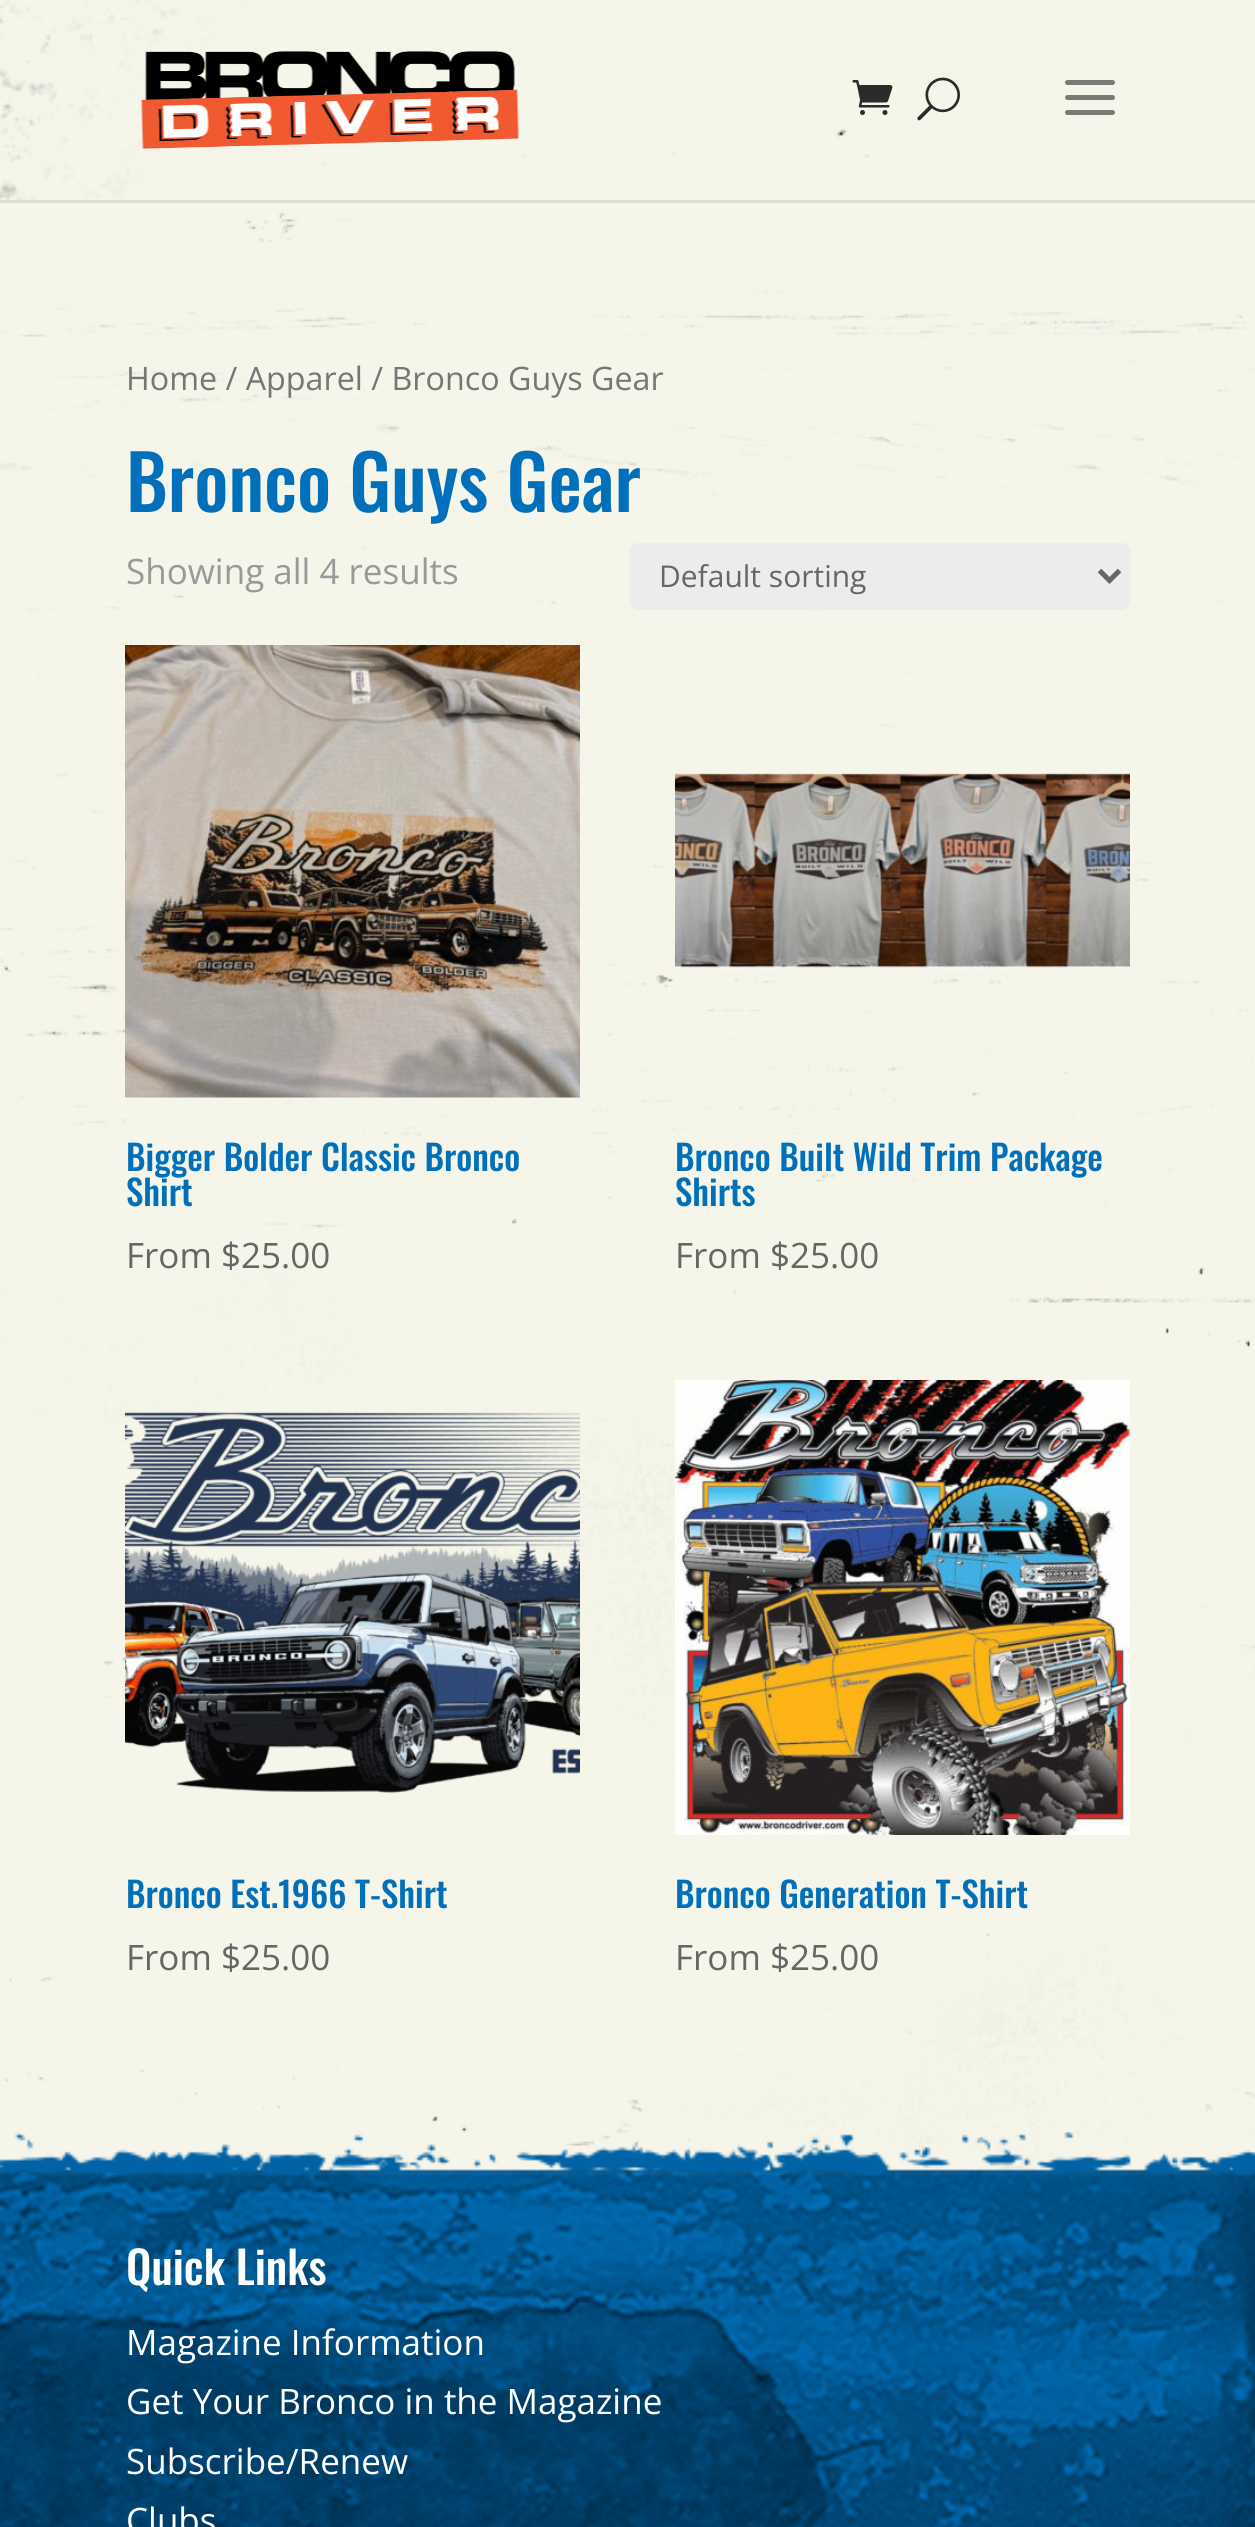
#include <cairo.h>
#include <math.h>
#include <stddef.h>

static cairo_t *ctx;

static void use_color(int r, int g, int b) {
    cairo_set_source_rgb(ctx, r / 255.0, g / 255.0, b / 255.0);
}

static void round_rect(double x, double y, double w, double h, double r) {
    cairo_new_sub_path(ctx);
    cairo_arc(ctx, x + w - r, y + h - r, r, 0, M_PI / 2);
    cairo_arc(ctx, x + r, y + h - r, r, M_PI / 2, M_PI);
    cairo_arc(ctx, x + r, y + r, r, M_PI, 1.5 * M_PI);
    cairo_arc(ctx, x + w - r, y + r, r, 1.5 * M_PI, 2 * M_PI);
    cairo_close_path(ctx);
}

static void picture(const char *path, double x, double y, double w, double h) {
    cairo_surface_t *image = cairo_image_surface_create_from_png(path);
    cairo_save(ctx);
    cairo_set_source_surface(ctx, image, x, y);
    cairo_rectangle(ctx, x, y, w, h);
    cairo_fill(ctx);
    cairo_restore(ctx);
    cairo_surface_destroy(image);
}

int main(void) {
    cairo_surface_t *surface = cairo_image_surface_create(CAIRO_FORMAT_RGB24, 1255, 2527);
    ctx = cairo_create(surface);
    cairo_font_options_t *options = cairo_font_options_create();
    cairo_font_options_set_hint_metrics(options, CAIRO_HINT_METRICS_OFF);
    cairo_font_options_set_hint_style(options, CAIRO_HINT_STYLE_NONE);
    cairo_set_font_options(ctx, options);
    cairo_set_miter_limit(ctx, 4);
    use_color(255, 255, 255);
    cairo_paint(ctx);
    picture("img1.png", 0, 203, 1255, 1968);
    use_color(221, 221, 210);
    cairo_rectangle(ctx, 0, 200, 1255, 3);
    cairo_fill(ctx);
    use_color(245, 245, 233);
    cairo_rectangle(ctx, 870, 0, 385, 200);
    cairo_fill(ctx);
    picture("img2.png", 0, 0, 870, 200);
    picture("img3.png", 141, 51, 378, 98);
    picture("img4.png", 852, 80, 41, 35);
    picture("img5.png", 917, 77, 43, 44);
    picture("img6.png", 1065, 80, 50, 35);
    cairo_select_font_face(ctx, "Open Sans", CAIRO_FONT_SLANT_NORMAL, CAIRO_FONT_WEIGHT_NORMAL);
    cairo_set_font_size(ctx, 32.25);
    use_color(118, 118, 118);
    cairo_move_to(ctx, 126, 390);
    cairo_show_text(ctx, "Home / Apparel / Bronco Guys Gear");
    cairo_select_font_face(ctx, "Oswald Medium", CAIRO_FONT_SLANT_NORMAL, CAIRO_FONT_WEIGHT_NORMAL);
    cairo_set_font_size(ctx, 75);
    use_color(0, 112, 186);
    cairo_move_to(ctx, 126, 512);
    cairo_show_text(ctx, "Bronco Guys Gear");
    cairo_select_font_face(ctx, "Open Sans", CAIRO_FONT_SLANT_NORMAL, CAIRO_FONT_WEIGHT_NORMAL);
    cairo_set_font_size(ctx, 35);
    use_color(153, 153, 153);
    cairo_move_to(ctx, 126, 584);
    cairo_show_text(ctx, "Showing all 4 results");
    use_color(236, 236, 236);
    round_rect(630, 543, 500, 67, 8);
    cairo_fill(ctx);
    cairo_new_path(ctx);
    cairo_move_to(ctx, 1099.5, 570.5);
    cairo_line_to(ctx, 1109.5, 580.5);
    cairo_line_to(ctx, 1119.5, 570.5);
    use_color(102, 102, 102);
    cairo_set_line_width(ctx, 5);
    cairo_stroke(ctx);
    cairo_set_font_size(ctx, 30);
    cairo_move_to(ctx, 659, 587);
    cairo_show_text(ctx, "Default sorting");
    picture("img7.png", 125, 645, 455, 453);
    cairo_select_font_face(ctx, "Oswald Medium", CAIRO_FONT_SLANT_NORMAL, CAIRO_FONT_WEIGHT_NORMAL);
    cairo_set_font_size(ctx, 35);
    use_color(0, 112, 186);
    cairo_move_to(ctx, 126, 1171);
    cairo_show_text(ctx, "Bigger Bolder Classic Bronco");
    cairo_move_to(ctx, 126, 1206);
    cairo_show_text(ctx, "Shirt");
    cairo_select_font_face(ctx, "Open Sans", CAIRO_FONT_SLANT_NORMAL, CAIRO_FONT_WEIGHT_NORMAL);
    use_color(102, 102, 102);
    cairo_move_to(ctx, 126, 1268);
    cairo_show_text(ctx, "From $25.00");
    picture("img8.png", 675, 773, 455, 196);
    cairo_select_font_face(ctx, "Oswald Medium", CAIRO_FONT_SLANT_NORMAL, CAIRO_FONT_WEIGHT_NORMAL);
    use_color(0, 112, 186);
    cairo_move_to(ctx, 675, 1171);
    cairo_show_text(ctx, "Bronco Built Wild Trim Package");
    cairo_move_to(ctx, 675, 1206);
    cairo_show_text(ctx, "Shirts");
    cairo_select_font_face(ctx, "Open Sans", CAIRO_FONT_SLANT_NORMAL, CAIRO_FONT_WEIGHT_NORMAL);
    use_color(102, 102, 102);
    cairo_move_to(ctx, 675, 1268);
    cairo_show_text(ctx, "From $25.00");
    picture("img9.png", 125, 1411, 455, 382);
    cairo_select_font_face(ctx, "Oswald Medium", CAIRO_FONT_SLANT_NORMAL, CAIRO_FONT_WEIGHT_NORMAL);
    use_color(0, 112, 186);
    cairo_move_to(ctx, 126, 1908);
    cairo_show_text(ctx, "Bronco Est.1966 T-Shirt");
    cairo_select_font_face(ctx, "Open Sans", CAIRO_FONT_SLANT_NORMAL, CAIRO_FONT_WEIGHT_NORMAL);
    use_color(102, 102, 102);
    cairo_move_to(ctx, 126, 1970);
    cairo_show_text(ctx, "From $25.00");
    picture("img10.png", 675, 1380, 455, 455);
    cairo_select_font_face(ctx, "Oswald Medium", CAIRO_FONT_SLANT_NORMAL, CAIRO_FONT_WEIGHT_NORMAL);
    use_color(0, 112, 186);
    cairo_move_to(ctx, 675, 1908);
    cairo_show_text(ctx, "Bronco Generation T-Shirt");
    cairo_select_font_face(ctx, "Open Sans", CAIRO_FONT_SLANT_NORMAL, CAIRO_FONT_WEIGHT_NORMAL);
    use_color(102, 102, 102);
    cairo_move_to(ctx, 675, 1970);
    cairo_show_text(ctx, "From $25.00");
    picture("img11.png", 0, 2131, 1255, 396);
    cairo_select_font_face(ctx, "Oswald Medium", CAIRO_FONT_SLANT_NORMAL, CAIRO_FONT_WEIGHT_NORMAL);
    cairo_set_font_size(ctx, 45);
    use_color(255, 255, 255);
    cairo_move_to(ctx, 126, 2285);
    cairo_show_text(ctx, "Quick Links");
    cairo_select_font_face(ctx, "Open Sans", CAIRO_FONT_SLANT_NORMAL, CAIRO_FONT_WEIGHT_NORMAL);
    cairo_set_font_size(ctx, 35);
    cairo_move_to(ctx, 126, 2355);
    cairo_show_text(ctx, "Magazine Information");
    cairo_move_to(ctx, 126, 2414);
    cairo_show_text(ctx, "Get Your Bronco in the Magazine");
    cairo_move_to(ctx, 126, 2474);
    cairo_show_text(ctx, "Subscribe/Renew");
    cairo_move_to(ctx, 126, 2533);
    cairo_show_text(ctx, "Clubs");
    cairo_surface_write_to_png(surface, "result.png");
    cairo_font_options_destroy(options);
    cairo_destroy(ctx);
    cairo_surface_destroy(surface);
    return 0;
}
